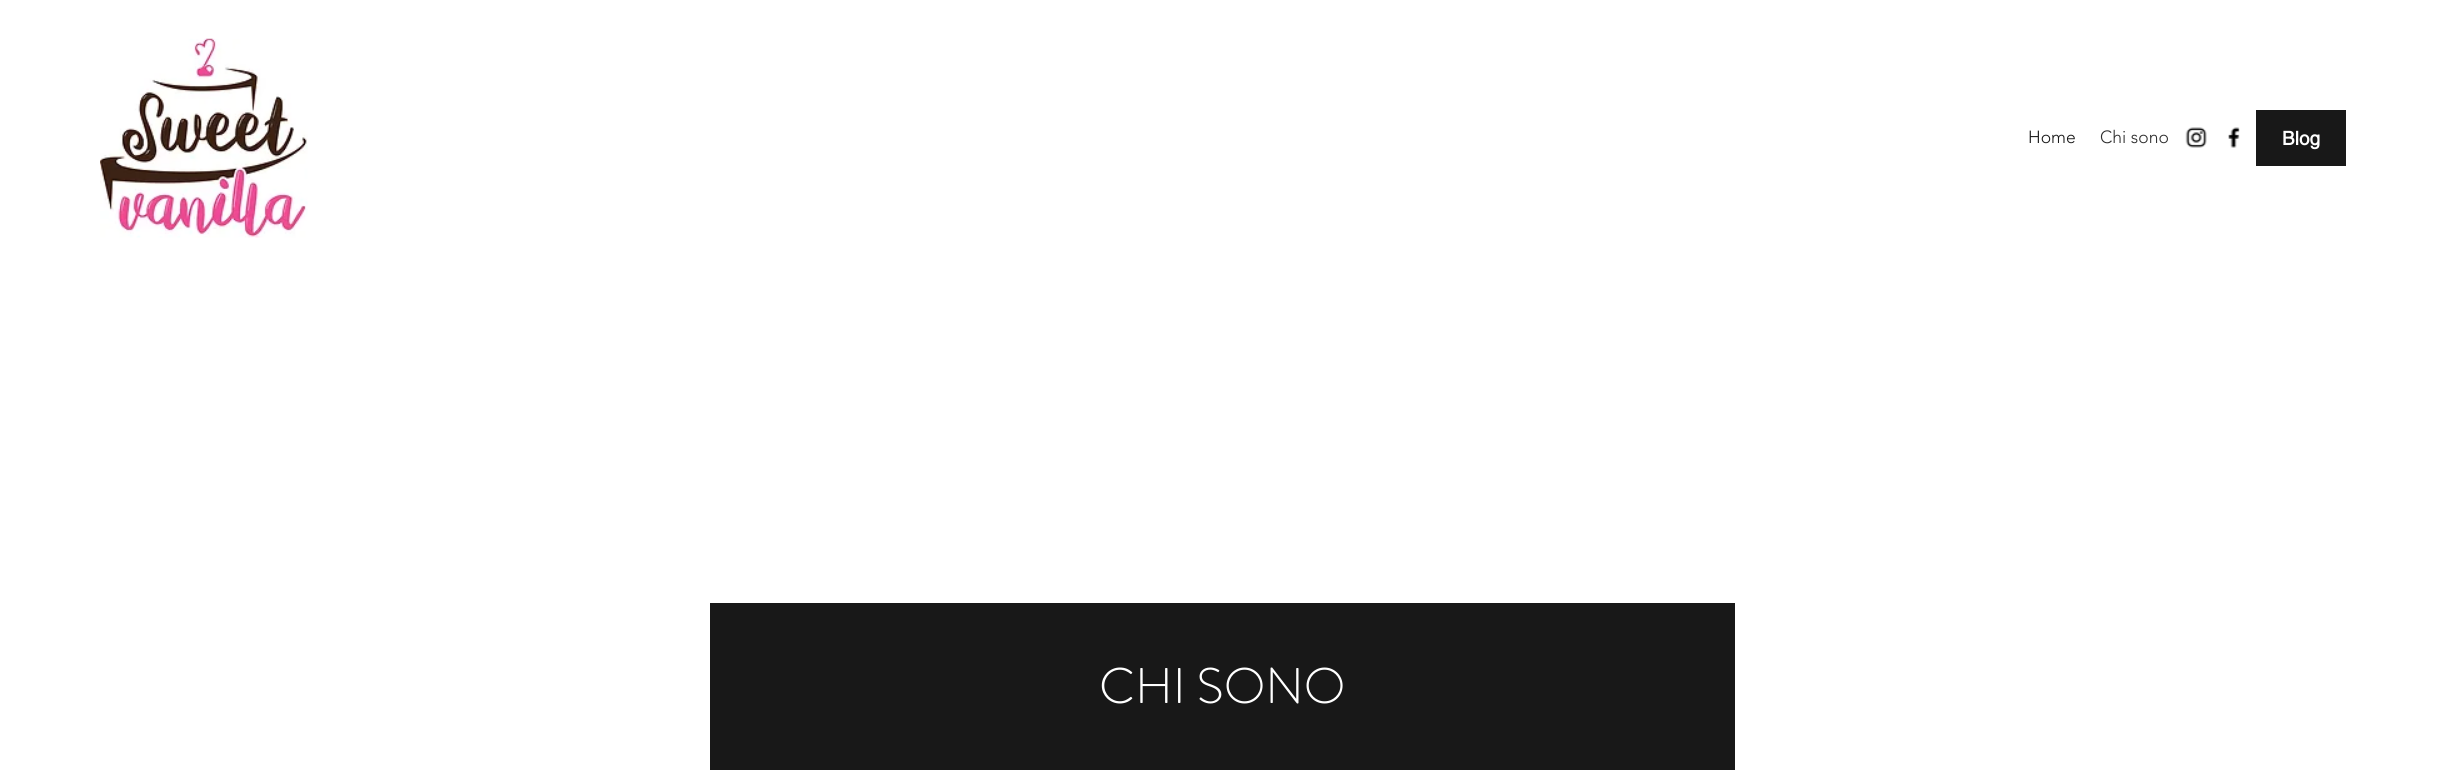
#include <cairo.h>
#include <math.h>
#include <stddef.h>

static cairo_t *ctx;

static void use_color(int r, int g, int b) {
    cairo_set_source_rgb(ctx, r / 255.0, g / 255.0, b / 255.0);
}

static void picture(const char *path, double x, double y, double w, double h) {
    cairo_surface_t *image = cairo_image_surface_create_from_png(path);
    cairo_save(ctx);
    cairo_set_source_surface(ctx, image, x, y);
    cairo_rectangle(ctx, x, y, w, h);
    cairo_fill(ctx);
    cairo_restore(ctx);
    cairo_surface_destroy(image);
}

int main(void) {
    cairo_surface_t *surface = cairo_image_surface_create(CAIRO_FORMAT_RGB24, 2445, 770);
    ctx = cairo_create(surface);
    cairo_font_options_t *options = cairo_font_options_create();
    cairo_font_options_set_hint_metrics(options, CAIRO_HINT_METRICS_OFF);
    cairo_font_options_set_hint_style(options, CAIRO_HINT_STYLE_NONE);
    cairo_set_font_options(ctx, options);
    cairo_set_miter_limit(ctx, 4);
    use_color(255, 255, 255);
    cairo_paint(ctx);
    picture("img1.png", 100, 38, 208, 200);
    cairo_select_font_face(ctx, "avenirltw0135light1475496 Light", CAIRO_FONT_SLANT_NORMAL, CAIRO_FONT_WEIGHT_NORMAL);
    cairo_set_font_size(ctx, 17.5);
    use_color(24, 24, 24);
    cairo_move_to(ctx, 2028, 143);
    cairo_show_text(ctx, "Home");
    use_color(44, 44, 44);
    cairo_move_to(ctx, 2100, 143);
    cairo_show_text(ctx, "Chi sono");
    picture("img2.png", 2185, 127, 22, 21);
    picture("img3.png", 2228, 127, 12, 21);
    use_color(24, 24, 24);
    cairo_rectangle(ctx, 2256, 110, 90, 56);
    cairo_fill(ctx);
    cairo_select_font_face(ctx, "helvetica", CAIRO_FONT_SLANT_NORMAL, CAIRO_FONT_WEIGHT_BOLD);
    cairo_set_font_size(ctx, 19);
    use_color(255, 255, 255);
    cairo_move_to(ctx, 2282, 145);
    cairo_show_text(ctx, "Blog");
    use_color(24, 24, 24);
    cairo_rectangle(ctx, 710, 603, 1025, 167);
    cairo_fill(ctx);
    cairo_select_font_face(ctx, "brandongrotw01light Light", CAIRO_FONT_SLANT_NORMAL, CAIRO_FONT_WEIGHT_NORMAL);
    cairo_set_font_size(ctx, 50);
    use_color(255, 255, 255);
    cairo_move_to(ctx, 1099, 703);
    cairo_show_text(ctx, "CHI SONO");
    cairo_surface_write_to_png(surface, "result.png");
    cairo_font_options_destroy(options);
    cairo_destroy(ctx);
    cairo_surface_destroy(surface);
    return 0;
}
